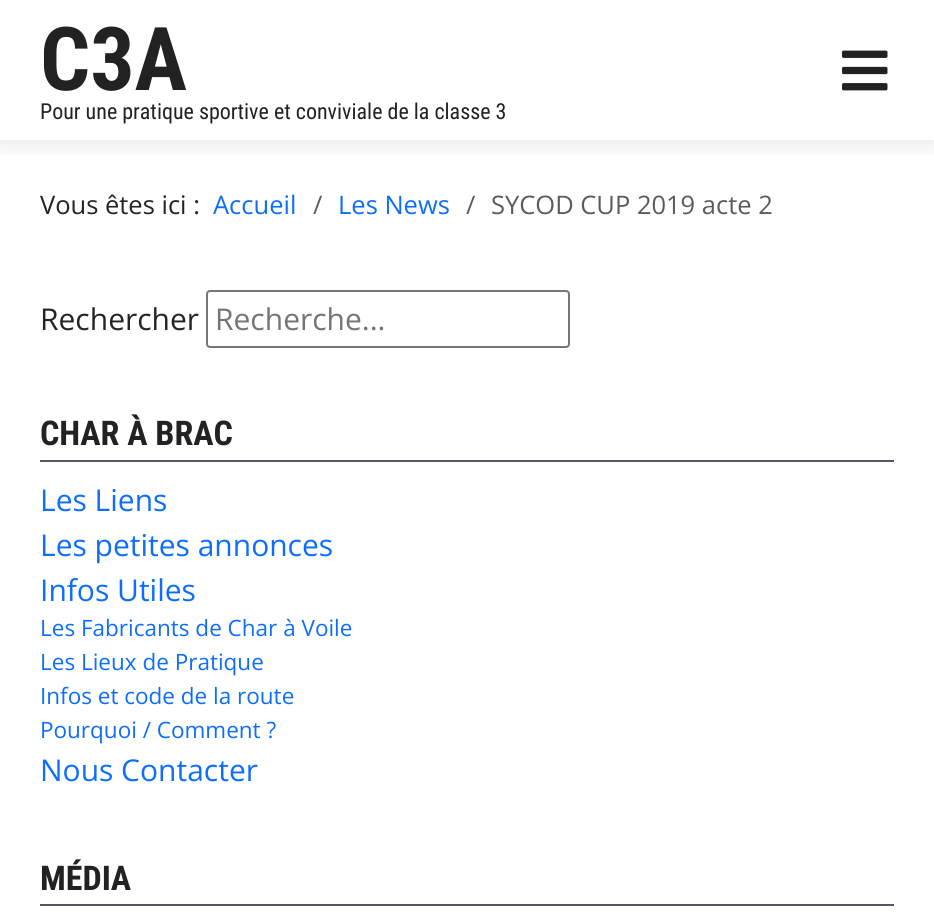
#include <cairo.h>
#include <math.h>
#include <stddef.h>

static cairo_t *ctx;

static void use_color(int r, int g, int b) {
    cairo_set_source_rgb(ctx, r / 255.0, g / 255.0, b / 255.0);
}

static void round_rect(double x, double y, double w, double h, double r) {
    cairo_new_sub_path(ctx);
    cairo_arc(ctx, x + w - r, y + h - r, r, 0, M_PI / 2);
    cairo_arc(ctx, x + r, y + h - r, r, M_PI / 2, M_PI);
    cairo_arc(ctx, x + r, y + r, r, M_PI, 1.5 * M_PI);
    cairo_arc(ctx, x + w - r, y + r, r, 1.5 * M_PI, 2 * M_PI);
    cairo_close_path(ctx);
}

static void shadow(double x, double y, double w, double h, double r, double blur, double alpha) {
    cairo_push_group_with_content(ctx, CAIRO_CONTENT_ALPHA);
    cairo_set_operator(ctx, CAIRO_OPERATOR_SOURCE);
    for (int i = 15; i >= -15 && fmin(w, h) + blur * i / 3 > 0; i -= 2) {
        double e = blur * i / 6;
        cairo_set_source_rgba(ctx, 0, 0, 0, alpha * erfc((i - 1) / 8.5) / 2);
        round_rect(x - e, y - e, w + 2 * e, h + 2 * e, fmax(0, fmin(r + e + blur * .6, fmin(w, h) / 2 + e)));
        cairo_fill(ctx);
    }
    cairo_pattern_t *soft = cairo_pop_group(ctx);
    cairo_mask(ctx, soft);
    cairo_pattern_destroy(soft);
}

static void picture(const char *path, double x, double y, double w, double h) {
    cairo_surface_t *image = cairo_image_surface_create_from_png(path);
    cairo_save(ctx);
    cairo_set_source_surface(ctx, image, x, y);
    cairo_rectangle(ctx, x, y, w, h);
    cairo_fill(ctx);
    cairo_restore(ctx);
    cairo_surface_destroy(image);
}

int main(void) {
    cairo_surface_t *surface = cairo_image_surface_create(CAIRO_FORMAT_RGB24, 934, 923);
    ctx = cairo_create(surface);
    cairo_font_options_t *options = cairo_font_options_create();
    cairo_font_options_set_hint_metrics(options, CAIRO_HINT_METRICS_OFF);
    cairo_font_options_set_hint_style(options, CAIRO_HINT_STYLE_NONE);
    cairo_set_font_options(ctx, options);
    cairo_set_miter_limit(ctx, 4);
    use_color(255, 255, 255);
    cairo_paint(ctx);
    cairo_save(ctx);
    cairo_rectangle(ctx, 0, 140, 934, 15);
    cairo_clip(ctx);
    use_color(0, 0, 0);
    shadow(0, 2, 934, 140, 0, 15, 0.1);
    cairo_restore(ctx);
    cairo_select_font_face(ctx, "Roboto Condensed", CAIRO_FONT_SLANT_NORMAL, CAIRO_FONT_WEIGHT_BOLD);
    cairo_set_font_size(ctx, 88);
    use_color(34, 34, 34);
    cairo_move_to(ctx, 40, 90);
    cairo_show_text(ctx, "C3A");
    cairo_select_font_face(ctx, "Roboto Condensed", CAIRO_FONT_SLANT_NORMAL, CAIRO_FONT_WEIGHT_NORMAL);
    cairo_set_font_size(ctx, 22);
    cairo_move_to(ctx, 40, 119);
    cairo_show_text(ctx, "Pour une pratique sportive et conviviale de la classe 3");
    picture("img1.png", 842, 50, 46, 41);
    cairo_select_font_face(ctx, "Open Sans", CAIRO_FONT_SLANT_NORMAL, CAIRO_FONT_WEIGHT_NORMAL);
    cairo_set_font_size(ctx, 25.5);
    use_color(33, 37, 41);
    cairo_move_to(ctx, 40, 214);
    cairo_show_text(ctx, "Vous êtes ici :");
    use_color(13, 110, 253);
    cairo_move_to(ctx, 213, 214);
    cairo_show_text(ctx, "Accueil");
    use_color(89, 92, 95);
    cairo_move_to(ctx, 313, 214);
    cairo_show_text(ctx, "/");
    use_color(13, 110, 253);
    cairo_move_to(ctx, 338, 214);
    cairo_show_text(ctx, "Les News");
    use_color(89, 92, 95);
    cairo_move_to(ctx, 466, 214);
    cairo_show_text(ctx, "/");
    cairo_move_to(ctx, 491, 214);
    cairo_show_text(ctx, "SYCOD CUP 2019 acte 2");
    cairo_set_font_size(ctx, 30);
    use_color(33, 37, 41);
    cairo_move_to(ctx, 40, 330);
    cairo_show_text(ctx, "Rechercher");
    round_rect(207, 291, 362, 56, 3);
    use_color(118, 118, 118);
    cairo_stroke(ctx);
    use_color(117, 117, 117);
    cairo_move_to(ctx, 215, 330);
    cairo_show_text(ctx, "Recherche...");
    use_color(85, 85, 102);
    cairo_rectangle(ctx, 40, 460, 854, 2);
    cairo_fill(ctx);
    cairo_select_font_face(ctx, "Roboto Condensed", CAIRO_FONT_SLANT_NORMAL, CAIRO_FONT_WEIGHT_BOLD);
    cairo_set_font_size(ctx, 34);
    use_color(34, 34, 34);
    cairo_move_to(ctx, 40, 445);
    cairo_show_text(ctx, "CHAR À BRAC");
    cairo_select_font_face(ctx, "Open Sans", CAIRO_FONT_SLANT_NORMAL, CAIRO_FONT_WEIGHT_NORMAL);
    cairo_set_font_size(ctx, 30);
    use_color(13, 110, 253);
    cairo_move_to(ctx, 40, 511);
    cairo_show_text(ctx, "Les Liens");
    cairo_move_to(ctx, 40, 556);
    cairo_show_text(ctx, "Les petites annonces");
    cairo_move_to(ctx, 40, 601);
    cairo_show_text(ctx, "Infos Utiles");
    cairo_set_font_size(ctx, 22.5);
    cairo_move_to(ctx, 40, 636);
    cairo_show_text(ctx, "Les Fabricants de Char à Voile");
    cairo_move_to(ctx, 40, 670);
    cairo_show_text(ctx, "Les Lieux de Pratique");
    cairo_move_to(ctx, 40, 704);
    cairo_show_text(ctx, "Infos et code de la route");
    cairo_move_to(ctx, 40, 738);
    cairo_show_text(ctx, "Pourquoi / Comment ?");
    cairo_set_font_size(ctx, 30);
    cairo_move_to(ctx, 40, 781);
    cairo_show_text(ctx, "Nous Contacter");
    use_color(85, 85, 102);
    cairo_rectangle(ctx, 40, 904, 854, 2);
    cairo_fill(ctx);
    cairo_select_font_face(ctx, "Roboto Condensed", CAIRO_FONT_SLANT_NORMAL, CAIRO_FONT_WEIGHT_BOLD);
    cairo_set_font_size(ctx, 34);
    use_color(34, 34, 34);
    cairo_move_to(ctx, 40, 890);
    cairo_show_text(ctx, "MÉDIA");
    cairo_surface_write_to_png(surface, "result.png");
    cairo_font_options_destroy(options);
    cairo_destroy(ctx);
    cairo_surface_destroy(surface);
    return 0;
}
